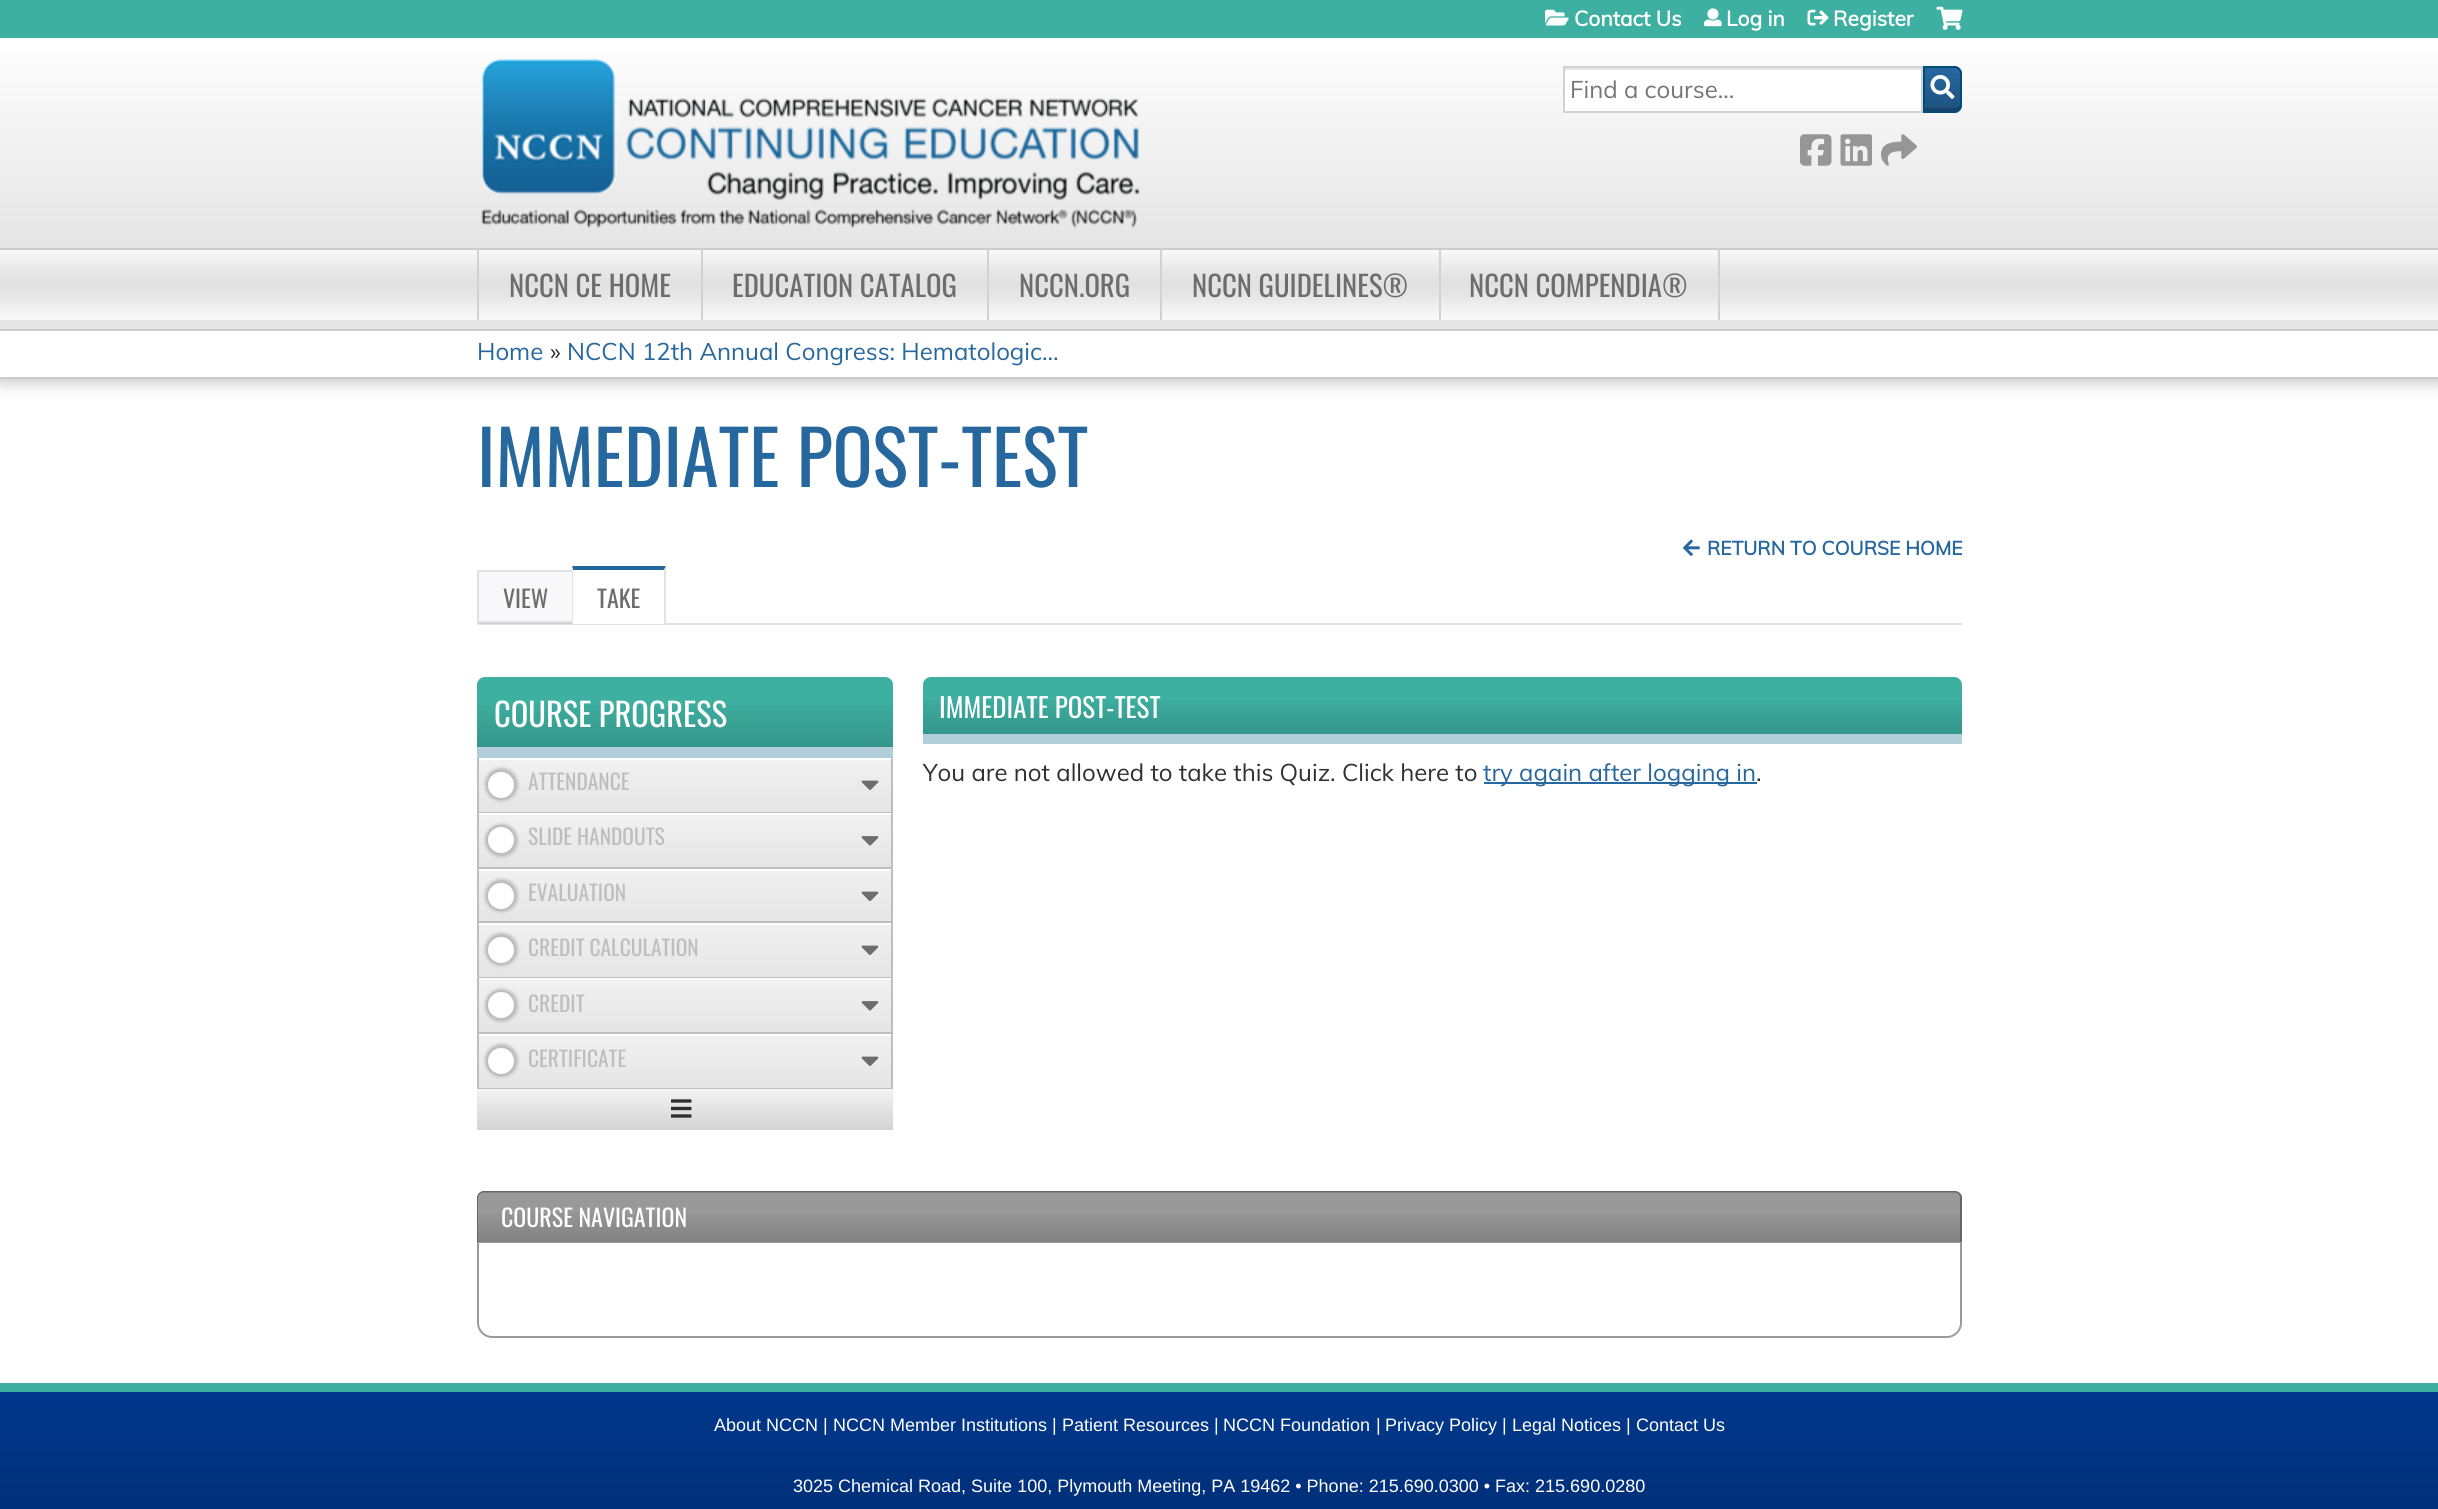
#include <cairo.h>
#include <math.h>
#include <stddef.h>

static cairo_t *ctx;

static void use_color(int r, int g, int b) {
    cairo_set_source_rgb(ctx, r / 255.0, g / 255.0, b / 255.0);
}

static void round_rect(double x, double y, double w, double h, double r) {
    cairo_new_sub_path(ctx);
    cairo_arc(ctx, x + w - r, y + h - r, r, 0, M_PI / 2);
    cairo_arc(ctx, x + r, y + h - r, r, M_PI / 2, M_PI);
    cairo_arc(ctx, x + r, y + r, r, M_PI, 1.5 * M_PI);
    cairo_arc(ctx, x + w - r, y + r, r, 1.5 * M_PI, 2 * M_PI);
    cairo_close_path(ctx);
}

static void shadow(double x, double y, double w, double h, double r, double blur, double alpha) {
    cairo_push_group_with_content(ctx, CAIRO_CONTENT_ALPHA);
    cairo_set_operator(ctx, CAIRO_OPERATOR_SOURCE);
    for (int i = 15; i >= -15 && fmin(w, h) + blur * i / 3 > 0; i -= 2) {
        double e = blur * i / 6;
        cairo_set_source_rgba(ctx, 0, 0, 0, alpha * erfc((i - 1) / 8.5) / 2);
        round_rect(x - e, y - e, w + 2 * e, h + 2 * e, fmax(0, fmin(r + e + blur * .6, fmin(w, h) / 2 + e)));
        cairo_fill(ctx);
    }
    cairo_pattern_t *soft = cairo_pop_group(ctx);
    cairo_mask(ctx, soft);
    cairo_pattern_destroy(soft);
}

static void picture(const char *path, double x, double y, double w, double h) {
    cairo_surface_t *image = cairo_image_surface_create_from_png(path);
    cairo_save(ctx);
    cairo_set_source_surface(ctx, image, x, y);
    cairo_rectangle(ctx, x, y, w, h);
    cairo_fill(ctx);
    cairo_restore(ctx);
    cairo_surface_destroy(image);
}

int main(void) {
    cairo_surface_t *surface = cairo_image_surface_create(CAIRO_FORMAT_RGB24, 2438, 1509);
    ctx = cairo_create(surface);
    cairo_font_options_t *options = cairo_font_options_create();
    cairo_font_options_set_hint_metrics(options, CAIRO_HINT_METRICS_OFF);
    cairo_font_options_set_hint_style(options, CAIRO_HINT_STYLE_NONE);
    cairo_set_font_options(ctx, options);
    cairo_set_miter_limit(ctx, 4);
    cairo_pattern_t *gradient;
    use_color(255, 255, 255);
    cairo_paint(ctx);
    gradient = cairo_pattern_create_linear(1220, 248, 1220, 38);
    cairo_pattern_add_color_stop_rgba(gradient, 0, 0.898, 0.898, 0.898, 1);
    cairo_pattern_add_color_stop_rgba(gradient, 1, 0.996, 0.996, 0.996, 1);
    cairo_set_source(ctx, gradient);
    cairo_pattern_destroy(gradient);
    cairo_rectangle(ctx, 0, 51, 2438, 197);
    cairo_fill(ctx);
    use_color(62, 176, 162);
    cairo_rectangle(ctx, 0, 0, 2438, 38);
    cairo_fill(ctx);
    picture("img1.png", 481, 58, 659, 171);
    picture("img2.png", 1545, 9, 24, 17);
    cairo_select_font_face(ctx, "Muli", CAIRO_FONT_SLANT_NORMAL, CAIRO_FONT_WEIGHT_BOLD);
    cairo_set_font_size(ctx, 21);
    use_color(255, 255, 255);
    cairo_move_to(ctx, 1574, 26);
    cairo_show_text(ctx, "Contact Us");
    picture("img3.png", 1704, 8, 18, 19);
    cairo_move_to(ctx, 1726, 26);
    cairo_show_text(ctx, "Log in");
    picture("img4.png", 1807, 9, 22, 17);
    cairo_move_to(ctx, 1833, 26);
    cairo_show_text(ctx, "Register");
    picture("img5.png", 1936, 6, 27, 24);
    use_color(38, 103, 158);
    cairo_new_path(ctx);
    cairo_move_to(ctx, 1923, 66);
    cairo_line_to(ctx, 1954, 66);
    cairo_curve_to(ctx, 1958.5, 66, 1962, 69.5, 1962, 74);
    cairo_line_to(ctx, 1962, 105);
    cairo_curve_to(ctx, 1962, 109.5, 1958.5, 113, 1954, 113);
    cairo_line_to(ctx, 1923, 113);
    cairo_close_path(ctx);
    cairo_fill(ctx);
    cairo_save(ctx);
    cairo_new_path(ctx);
    cairo_move_to(ctx, 1923, 66);
    cairo_line_to(ctx, 1954, 66);
    cairo_curve_to(ctx, 1958.5, 66, 1962, 69.5, 1962, 74);
    cairo_line_to(ctx, 1962, 105);
    cairo_curve_to(ctx, 1962, 109.5, 1958.5, 113, 1954, 113);
    cairo_line_to(ctx, 1923, 113);
    cairo_close_path(ctx);
    cairo_clip(ctx);
    gradient = cairo_pattern_create_linear(1943, 111, 1943, 68);
    cairo_pattern_add_color_stop_rgba(gradient, 0, 0, 0, 0, 0.2);
    cairo_pattern_add_color_stop_rgba(gradient, 1, 0, 0, 0, 0);
    cairo_set_source(ctx, gradient);
    cairo_pattern_destroy(gradient);
    cairo_rectangle(ctx, 1925, 73, 37, 38);
    cairo_fill(ctx);
    cairo_restore(ctx);
    cairo_set_source_rgba(ctx, 0, 0, 0, 0.2);
    cairo_new_path(ctx);
    cairo_move_to(ctx, 1925, 108);
    cairo_line_to(ctx, 1925, 111);
    cairo_line_to(ctx, 1955, 111);
    cairo_curve_to(ctx, 1958.5, 111, 1961, 108.5, 1961, 105);
    cairo_line_to(ctx, 1961, 104.5);
    cairo_curve_to(ctx, 1959.5, 106.5, 1957.5, 108, 1954, 108);
    cairo_close_path(ctx);
    cairo_fill(ctx);
    cairo_new_path(ctx);
    cairo_move_to(ctx, 1924, 67);
    cairo_line_to(ctx, 1954, 67);
    cairo_curve_to(ctx, 1958, 67, 1961, 70, 1961, 74);
    cairo_line_to(ctx, 1961, 105);
    cairo_curve_to(ctx, 1961, 109, 1958, 112, 1954, 112);
    cairo_line_to(ctx, 1924, 112);
    cairo_close_path(ctx);
    use_color(0, 77, 120);
    cairo_stroke(ctx);
    use_color(255, 255, 255);
    cairo_rectangle(ctx, 1565, 70, 356, 41);
    cairo_fill(ctx);
    use_color(230, 230, 230);
    cairo_rectangle(ctx, 1565, 68, 357, 2);
    cairo_fill(ctx);
    cairo_rectangle(ctx, 1564, 67, 358, 45);
    use_color(209, 209, 209);
    cairo_stroke(ctx);
    cairo_select_font_face(ctx, "Muli", CAIRO_FONT_SLANT_NORMAL, CAIRO_FONT_WEIGHT_NORMAL);
    cairo_set_font_size(ctx, 24);
    use_color(117, 117, 117);
    cairo_move_to(ctx, 1570, 98);
    cairo_show_text(ctx, "Find a course...");
    picture("img6.png", 1930, 75, 25, 24);
    picture("img7.png", 1800, 134, 32, 32);
    picture("img8.png", 1840, 134, 32, 32);
    picture("img9.png", 1881, 134, 36, 32);
    use_color(0, 0, 0);
    shadow(-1, 332, 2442, 52, 0, 7.5, 0.2);
    gradient = cairo_pattern_create_linear(1220, 249, 1220, 320);
    cairo_pattern_add_color_stop_rgba(gradient, 0, 0.98, 0.98, 0.98, 1);
    cairo_pattern_add_color_stop_rgba(gradient, 0.33, 0.902, 0.902, 0.902, 1);
    cairo_pattern_add_color_stop_rgba(gradient, 0.5, 0.882, 0.882, 0.882, 1);
    cairo_pattern_add_color_stop_rgba(gradient, 0.66, 0.902, 0.902, 0.902, 1);
    cairo_pattern_add_color_stop_rgba(gradient, 1, 0.98, 0.98, 0.98, 1);
    cairo_set_source(ctx, gradient);
    cairo_pattern_destroy(gradient);
    cairo_rectangle(ctx, 0, 250, 2438, 70);
    cairo_fill(ctx);
    use_color(204, 204, 204);
    cairo_rectangle(ctx, 0, 248, 2438, 2);
    cairo_fill(ctx);
    use_color(229, 229, 229);
    cairo_rectangle(ctx, 0, 320, 2438, 9);
    cairo_fill(ctx);
    use_color(210, 210, 210);
    cairo_rectangle(ctx, 701, 249, 2, 71);
    cairo_fill(ctx);
    cairo_rectangle(ctx, 477, 249, 2, 71);
    cairo_fill(ctx);
    cairo_select_font_face(ctx, "Oswald", CAIRO_FONT_SLANT_NORMAL, CAIRO_FONT_WEIGHT_NORMAL);
    cairo_set_font_size(ctx, 28.75);
    use_color(109, 109, 109);
    cairo_move_to(ctx, 509, 297);
    cairo_show_text(ctx, "NCCN CE HOME");
    use_color(210, 210, 210);
    cairo_rectangle(ctx, 987, 249, 2, 71);
    cairo_fill(ctx);
    use_color(109, 109, 109);
    cairo_move_to(ctx, 732, 297);
    cairo_show_text(ctx, "EDUCATION CATALOG");
    use_color(210, 210, 210);
    cairo_rectangle(ctx, 1160, 249, 2, 71);
    cairo_fill(ctx);
    use_color(109, 109, 109);
    cairo_move_to(ctx, 1019, 297);
    cairo_show_text(ctx, "NCCN.ORG");
    use_color(210, 210, 210);
    cairo_rectangle(ctx, 1439, 249, 2, 71);
    cairo_fill(ctx);
    use_color(109, 109, 109);
    cairo_move_to(ctx, 1192, 297);
    cairo_show_text(ctx, "NCCN GUIDELINES®");
    use_color(210, 210, 210);
    cairo_rectangle(ctx, 1718, 249, 2, 71);
    cairo_fill(ctx);
    use_color(109, 109, 109);
    cairo_move_to(ctx, 1469, 297);
    cairo_show_text(ctx, "NCCN COMPENDIA®");
    use_color(255, 255, 255);
    cairo_rectangle(ctx, 0, 331, 2438, 46);
    cairo_fill(ctx);
    use_color(204, 204, 204);
    cairo_rectangle(ctx, 0, 329, 2438, 2);
    cairo_fill(ctx);
    cairo_rectangle(ctx, 0, 377, 2438, 2);
    cairo_fill(ctx);
    cairo_select_font_face(ctx, "Muli", CAIRO_FONT_SLANT_NORMAL, CAIRO_FONT_WEIGHT_NORMAL);
    cairo_set_font_size(ctx, 24);
    use_color(38, 103, 158);
    cairo_move_to(ctx, 477, 360);
    cairo_show_text(ctx, "Home");
    use_color(47, 47, 47);
    cairo_move_to(ctx, 550, 360);
    cairo_show_text(ctx, "»");
    use_color(38, 103, 158);
    cairo_move_to(ctx, 567, 360);
    cairo_show_text(ctx, "NCCN 12th Annual Congress: Hematologic...");
    cairo_select_font_face(ctx, "Oswald", CAIRO_FONT_SLANT_NORMAL, CAIRO_FONT_WEIGHT_NORMAL);
    cairo_set_font_size(ctx, 74.5);
    cairo_move_to(ctx, 477, 487);
    cairo_show_text(ctx, "IMMEDIATE POST-TEST");
    picture("img10.png", 1683, 539, 17, 17);
    cairo_select_font_face(ctx, "Muli", CAIRO_FONT_SLANT_NORMAL, CAIRO_FONT_WEIGHT_BOLD);
    cairo_set_font_size(ctx, 19.25);
    cairo_move_to(ctx, 1707, 555);
    cairo_show_text(ctx, "RETURN TO COURSE HOME");
    use_color(225, 225, 225);
    cairo_rectangle(ctx, 477, 623, 1485, 2);
    cairo_fill(ctx);
    gradient = cairo_pattern_create_linear(525, 624, 525, 572);
    cairo_pattern_add_color_stop_rgba(gradient, 0, 0.776, 0.776, 0.784, 1);
    cairo_pattern_add_color_stop_rgba(gradient, 0.07, 0.973, 0.973, 0.98, 1);
    cairo_set_source(ctx, gradient);
    cairo_pattern_destroy(gradient);
    cairo_rectangle(ctx, 479, 572, 93, 52);
    cairo_fill(ctx);
    use_color(225, 225, 225);
    cairo_rectangle(ctx, 477, 570, 96, 2);
    cairo_fill(ctx);
    cairo_rectangle(ctx, 477, 570, 2, 54);
    cairo_fill(ctx);
    cairo_select_font_face(ctx, "Oswald", CAIRO_FONT_SLANT_NORMAL, CAIRO_FONT_WEIGHT_NORMAL);
    cairo_set_font_size(ctx, 24);
    use_color(109, 109, 109);
    cairo_move_to(ctx, 503, 608);
    cairo_show_text(ctx, "VIEW");
    use_color(255, 255, 255);
    cairo_rectangle(ctx, 573, 623, 91, 1);
    cairo_fill(ctx);
    use_color(38, 103, 158);
    cairo_new_path(ctx);
    cairo_move_to(ctx, 572, 566);
    cairo_line_to(ctx, 666, 566);
    cairo_line_to(ctx, 664, 570);
    cairo_line_to(ctx, 573, 570);
    cairo_close_path(ctx);
    cairo_fill(ctx);
    use_color(225, 225, 225);
    cairo_new_path(ctx);
    cairo_move_to(ctx, 666, 566);
    cairo_line_to(ctx, 666, 624);
    cairo_line_to(ctx, 664, 624);
    cairo_line_to(ctx, 664, 570);
    cairo_close_path(ctx);
    cairo_fill(ctx);
    cairo_new_path(ctx);
    cairo_move_to(ctx, 572, 624);
    cairo_line_to(ctx, 572, 566);
    cairo_line_to(ctx, 573, 570);
    cairo_line_to(ctx, 573, 624);
    cairo_close_path(ctx);
    cairo_fill(ctx);
    use_color(109, 109, 109);
    cairo_move_to(ctx, 597, 608);
    cairo_show_text(ctx, "TAKE");
    use_color(62, 176, 162);
    cairo_new_path(ctx);
    cairo_move_to(ctx, 485, 677);
    cairo_line_to(ctx, 885, 677);
    cairo_curve_to(ctx, 889.5, 677, 893, 680.5, 893, 685);
    cairo_line_to(ctx, 893, 758);
    cairo_line_to(ctx, 477, 758);
    cairo_line_to(ctx, 477, 685);
    cairo_curve_to(ctx, 477, 680.5, 480.5, 677, 485, 677);
    cairo_close_path(ctx);
    cairo_fill(ctx);
    gradient = cairo_pattern_create_linear(685, 747, 685, 677);
    cairo_pattern_add_color_stop_rgba(gradient, 0, 0, 0, 0, 0.15);
    cairo_pattern_add_color_stop_rgba(gradient, 0.7, 0, 0, 0, 0);
    cairo_set_source(ctx, gradient);
    cairo_pattern_destroy(gradient);
    cairo_rectangle(ctx, 477, 705, 416, 42);
    cairo_fill(ctx);
    use_color(178, 206, 216);
    cairo_rectangle(ctx, 477, 747, 416, 11);
    cairo_fill(ctx);
    cairo_set_font_size(ctx, 32.5);
    use_color(255, 255, 255);
    cairo_move_to(ctx, 494, 727);
    cairo_show_text(ctx, "COURSE PROGRESS");
    use_color(190, 190, 190);
    cairo_rectangle(ctx, 891, 758, 2, 331);
    cairo_fill(ctx);
    cairo_rectangle(ctx, 477, 1088, 416, 1);
    cairo_fill(ctx);
    cairo_rectangle(ctx, 477, 758, 2, 331);
    cairo_fill(ctx);
    gradient = cairo_pattern_create_linear(685, 759, 685, 812);
    cairo_pattern_add_color_stop_rgba(gradient, 0, 0.945, 0.945, 0.945, 1);
    cairo_pattern_add_color_stop_rgba(gradient, 1, 0.898, 0.898, 0.898, 1);
    cairo_set_source(ctx, gradient);
    cairo_pattern_destroy(gradient);
    cairo_rectangle(ctx, 479, 760, 412, 52);
    cairo_fill(ctx);
    use_color(190, 190, 190);
    cairo_rectangle(ctx, 479, 812, 412, 1);
    cairo_fill(ctx);
    use_color(190, 190, 190);
    shadow(485, 768, 33, 33, 16.5, 1.5, 1);
    use_color(255, 255, 255);
    cairo_arc(ctx, 501, 785, 14, 0, 2 * M_PI);
    cairo_fill_preserve(ctx);
    use_color(190, 190, 190);
    cairo_stroke(ctx);
    cairo_set_font_size(ctx, 21.5);
    cairo_move_to(ctx, 528, 790);
    cairo_show_text(ctx, "ATTENDANCE");
    picture("img11.png", 861, 780, 18, 10);
    gradient = cairo_pattern_create_linear(685, 815, 685, 867);
    cairo_pattern_add_color_stop_rgba(gradient, 0, 0.945, 0.945, 0.945, 1);
    cairo_pattern_add_color_stop_rgba(gradient, 1, 0.898, 0.898, 0.898, 1);
    cairo_set_source(ctx, gradient);
    cairo_pattern_destroy(gradient);
    cairo_rectangle(ctx, 479, 815, 412, 52);
    cairo_fill(ctx);
    use_color(190, 190, 190);
    cairo_rectangle(ctx, 479, 867, 412, 2);
    cairo_fill(ctx);
    use_color(190, 190, 190);
    shadow(485, 824, 33, 33, 16.5, 1.5, 1);
    use_color(255, 255, 255);
    cairo_arc(ctx, 501, 840, 14, 0, 2 * M_PI);
    cairo_fill_preserve(ctx);
    use_color(190, 190, 190);
    cairo_stroke(ctx);
    cairo_move_to(ctx, 528, 845);
    cairo_show_text(ctx, "SLIDE HANDOUTS");
    picture("img12.png", 861, 836, 18, 10);
    gradient = cairo_pattern_create_linear(685, 870, 685, 921);
    cairo_pattern_add_color_stop_rgba(gradient, 0, 0.945, 0.945, 0.945, 1);
    cairo_pattern_add_color_stop_rgba(gradient, 1, 0.898, 0.898, 0.898, 1);
    cairo_set_source(ctx, gradient);
    cairo_pattern_destroy(gradient);
    cairo_rectangle(ctx, 479, 871, 412, 50);
    cairo_fill(ctx);
    use_color(190, 190, 190);
    cairo_rectangle(ctx, 479, 921, 412, 2);
    cairo_fill(ctx);
    use_color(190, 190, 190);
    shadow(485, 879, 33, 33, 16.5, 1.5, 1);
    use_color(255, 255, 255);
    cairo_arc(ctx, 501, 896, 14, 0, 2 * M_PI);
    cairo_fill_preserve(ctx);
    use_color(190, 190, 190);
    cairo_stroke(ctx);
    cairo_move_to(ctx, 528, 901);
    cairo_show_text(ctx, "EVALUATION");
    picture("img13.png", 861, 891, 18, 10);
    gradient = cairo_pattern_create_linear(685, 924, 685, 977);
    cairo_pattern_add_color_stop_rgba(gradient, 0, 0.945, 0.945, 0.945, 1);
    cairo_pattern_add_color_stop_rgba(gradient, 1, 0.898, 0.898, 0.898, 1);
    cairo_set_source(ctx, gradient);
    cairo_pattern_destroy(gradient);
    cairo_rectangle(ctx, 479, 925, 412, 52);
    cairo_fill(ctx);
    use_color(190, 190, 190);
    cairo_rectangle(ctx, 479, 977, 412, 1);
    cairo_fill(ctx);
    use_color(190, 190, 190);
    shadow(485, 933, 33, 33, 16.5, 1.5, 1);
    use_color(255, 255, 255);
    cairo_arc(ctx, 501, 950, 14, 0, 2 * M_PI);
    cairo_fill_preserve(ctx);
    use_color(190, 190, 190);
    cairo_stroke(ctx);
    cairo_move_to(ctx, 528, 956);
    cairo_show_text(ctx, "CREDIT CALCULATION");
    picture("img11.png", 861, 945, 18, 10);
    gradient = cairo_pattern_create_linear(685, 980, 685, 1032);
    cairo_pattern_add_color_stop_rgba(gradient, 0, 0.945, 0.945, 0.945, 1);
    cairo_pattern_add_color_stop_rgba(gradient, 1, 0.898, 0.898, 0.898, 1);
    cairo_set_source(ctx, gradient);
    cairo_pattern_destroy(gradient);
    cairo_rectangle(ctx, 479, 980, 412, 52);
    cairo_fill(ctx);
    use_color(190, 190, 190);
    cairo_rectangle(ctx, 479, 1032, 412, 2);
    cairo_fill(ctx);
    use_color(190, 190, 190);
    shadow(485, 989, 33, 33, 16.5, 1.5, 1);
    use_color(255, 255, 255);
    cairo_arc(ctx, 501, 1005, 14, 0, 2 * M_PI);
    cairo_fill_preserve(ctx);
    use_color(190, 190, 190);
    cairo_stroke(ctx);
    cairo_move_to(ctx, 528, 1012);
    cairo_show_text(ctx, "CREDIT");
    picture("img12.png", 861, 1001, 18, 10);
    gradient = cairo_pattern_create_linear(685, 1035, 685, 1088);
    cairo_pattern_add_color_stop_rgba(gradient, 0, 0.945, 0.945, 0.945, 1);
    cairo_pattern_add_color_stop_rgba(gradient, 1, 0.898, 0.898, 0.898, 1);
    cairo_set_source(ctx, gradient);
    cairo_pattern_destroy(gradient);
    cairo_rectangle(ctx, 479, 1036, 412, 52);
    cairo_fill(ctx);
    use_color(190, 190, 190);
    shadow(485, 1044, 33, 33, 16.5, 1.5, 1);
    use_color(255, 255, 255);
    cairo_arc(ctx, 501, 1061, 14, 0, 2 * M_PI);
    cairo_fill_preserve(ctx);
    use_color(190, 190, 190);
    cairo_stroke(ctx);
    cairo_move_to(ctx, 528, 1067);
    cairo_show_text(ctx, "CERTIFICATE");
    picture("img11.png", 861, 1056, 18, 10);
    gradient = cairo_pattern_create_linear(685, 1089, 685, 1130);
    cairo_pattern_add_color_stop_rgba(gradient, 0, 0.953, 0.953, 0.953, 1);
    cairo_pattern_add_color_stop_rgba(gradient, 1, 0.827, 0.827, 0.827, 1);
    cairo_set_source(ctx, gradient);
    cairo_pattern_destroy(gradient);
    cairo_rectangle(ctx, 477, 1089, 416, 41);
    cairo_fill(ctx);
    picture("img14.png", 671, 1099, 21, 19);
    use_color(62, 176, 162);
    cairo_new_path(ctx);
    cairo_move_to(ctx, 931, 677);
    cairo_line_to(ctx, 1954, 677);
    cairo_curve_to(ctx, 1958.5, 677, 1962, 680.5, 1962, 685);
    cairo_line_to(ctx, 1962, 744);
    cairo_line_to(ctx, 923, 744);
    cairo_line_to(ctx, 923, 685);
    cairo_curve_to(ctx, 923, 680.5, 926.5, 677, 931, 677);
    cairo_close_path(ctx);
    cairo_fill(ctx);
    gradient = cairo_pattern_create_linear(1442, 734, 1442, 677);
    cairo_pattern_add_color_stop_rgba(gradient, 0, 0, 0, 0, 0.15);
    cairo_pattern_add_color_stop_rgba(gradient, 0.7, 0, 0, 0, 0);
    cairo_set_source(ctx, gradient);
    cairo_pattern_destroy(gradient);
    cairo_rectangle(ctx, 923, 700, 1039, 34);
    cairo_fill(ctx);
    use_color(178, 206, 216);
    cairo_rectangle(ctx, 923, 734, 1039, 10);
    cairo_fill(ctx);
    cairo_set_font_size(ctx, 27);
    use_color(255, 255, 255);
    cairo_move_to(ctx, 939, 718);
    cairo_show_text(ctx, "IMMEDIATE POST-TEST");
    cairo_select_font_face(ctx, "Muli", CAIRO_FONT_SLANT_NORMAL, CAIRO_FONT_WEIGHT_NORMAL);
    cairo_set_font_size(ctx, 24);
    use_color(47, 47, 47);
    cairo_move_to(ctx, 923, 781);
    cairo_show_text(ctx, "You are not allowed to take this Quiz. Click here to");
    use_color(38, 103, 158);
    cairo_rectangle(ctx, 1484, 782, 273, 2);
    cairo_fill(ctx);
    cairo_move_to(ctx, 1483, 781);
    cairo_show_text(ctx, "try again after logging in");
    use_color(47, 47, 47);
    cairo_move_to(ctx, 1756, 781);
    cairo_show_text(ctx, ".");
    cairo_new_path(ctx);
    cairo_move_to(ctx, 478, 1242);
    cairo_line_to(ctx, 1961, 1242);
    cairo_line_to(ctx, 1961, 1323);
    cairo_curve_to(ctx, 1961, 1330.5, 1954.5, 1337, 1947, 1337);
    cairo_line_to(ctx, 492, 1337);
    cairo_curve_to(ctx, 484.5, 1337, 478, 1330.5, 478, 1323);
    cairo_close_path(ctx);
    use_color(153, 153, 153);
    cairo_stroke(ctx);
    cairo_new_path(ctx);
    cairo_move_to(ctx, 485, 1191);
    cairo_line_to(ctx, 1954, 1191);
    cairo_curve_to(ctx, 1958.5, 1191, 1962, 1194.5, 1962, 1199);
    cairo_line_to(ctx, 1962, 1242);
    cairo_line_to(ctx, 477, 1242);
    cairo_line_to(ctx, 477, 1199);
    cairo_curve_to(ctx, 477, 1194.5, 480.5, 1191, 485, 1191);
    cairo_close_path(ctx);
    cairo_fill(ctx);
    cairo_save(ctx);
    cairo_new_path(ctx);
    cairo_move_to(ctx, 485, 1191);
    cairo_line_to(ctx, 1954, 1191);
    cairo_curve_to(ctx, 1958.5, 1191, 1962, 1194.5, 1962, 1199);
    cairo_line_to(ctx, 1962, 1242);
    cairo_line_to(ctx, 477, 1242);
    cairo_line_to(ctx, 477, 1199);
    cairo_curve_to(ctx, 477, 1194.5, 480.5, 1191, 485, 1191);
    cairo_close_path(ctx);
    cairo_clip(ctx);
    gradient = cairo_pattern_create_linear(1220, 1193, 1220, 1143);
    cairo_pattern_add_color_stop_rgba(gradient, 0, 0, 0, 0, 0.15);
    cairo_pattern_add_color_stop_rgba(gradient, 0.7, 0, 0, 0, 0);
    cairo_set_source(ctx, gradient);
    cairo_pattern_destroy(gradient);
    cairo_rectangle(ctx, 477, 1191, 1485, 2);
    cairo_fill(ctx);
    cairo_restore(ctx);
    gradient = cairo_pattern_create_linear(1220, 1242, 1220, 1193);
    cairo_pattern_add_color_stop_rgba(gradient, 0, 0, 0, 0, 0.15);
    cairo_pattern_add_color_stop_rgba(gradient, 0.7, 0, 0, 0, 0);
    cairo_set_source(ctx, gradient);
    cairo_pattern_destroy(gradient);
    cairo_rectangle(ctx, 478, 1213, 1482, 29);
    cairo_fill(ctx);
    use_color(102, 102, 102);
    cairo_set_fill_rule(ctx, CAIRO_FILL_RULE_EVEN_ODD);
    cairo_new_path(ctx);
    cairo_move_to(ctx, 484, 1191);
    cairo_line_to(ctx, 1954, 1191);
    cairo_curve_to(ctx, 1959, 1191, 1962, 1194, 1962, 1198);
    cairo_line_to(ctx, 1962, 1242);
    cairo_line_to(ctx, 477, 1242);
    cairo_line_to(ctx, 477, 1198);
    cairo_curve_to(ctx, 477, 1194, 480, 1191, 484, 1191);
    cairo_close_path(ctx);
    cairo_move_to(ctx, 484, 1192);
    cairo_line_to(ctx, 1954, 1192);
    cairo_curve_to(ctx, 1958, 1192, 1960, 1195, 1960, 1198);
    cairo_line_to(ctx, 1960, 1242);
    cairo_line_to(ctx, 478, 1242);
    cairo_line_to(ctx, 478, 1198);
    cairo_curve_to(ctx, 478, 1195, 481, 1192, 484, 1192);
    cairo_close_path(ctx);
    cairo_fill(ctx);
    cairo_select_font_face(ctx, "Oswald", CAIRO_FONT_SLANT_NORMAL, CAIRO_FONT_WEIGHT_NORMAL);
    use_color(255, 255, 255);
    cairo_move_to(ctx, 501, 1227);
    cairo_show_text(ctx, "COURSE NAVIGATION");
    gradient = cairo_pattern_create_linear(1220, 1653, 1220, 1392);
    cairo_pattern_add_color_stop_rgba(gradient, 0, 0.004, 0.153, 0.384, 1);
    cairo_pattern_add_color_stop_rgba(gradient, 1, 0.004, 0.216, 0.549, 1);
    cairo_set_source(ctx, gradient);
    cairo_pattern_destroy(gradient);
    cairo_rectangle(ctx, 0, 1392, 2438, 117);
    cairo_fill(ctx);
    use_color(62, 176, 162);
    cairo_rectangle(ctx, 0, 1383, 2438, 9);
    cairo_fill(ctx);
    cairo_select_font_face(ctx, "Liberation Sans", CAIRO_FONT_SLANT_NORMAL, CAIRO_FONT_WEIGHT_NORMAL);
    cairo_set_font_size(ctx, 18);
    use_color(255, 255, 255);
    cairo_move_to(ctx, 714, 1431);
    cairo_show_text(ctx, "About NCCN");
    cairo_move_to(ctx, 823, 1431);
    cairo_show_text(ctx, "|");
    cairo_move_to(ctx, 833, 1431);
    cairo_show_text(ctx, "NCCN Member Institutions");
    cairo_move_to(ctx, 1052, 1431);
    cairo_show_text(ctx, "|");
    cairo_move_to(ctx, 1062, 1431);
    cairo_show_text(ctx, "Patient Resources");
    cairo_move_to(ctx, 1214, 1431);
    cairo_show_text(ctx, "|");
    cairo_move_to(ctx, 1223, 1431);
    cairo_show_text(ctx, "NCCN Foundation");
    cairo_move_to(ctx, 1376, 1431);
    cairo_show_text(ctx, "|");
    cairo_move_to(ctx, 1385, 1431);
    cairo_show_text(ctx, "Privacy Policy");
    cairo_move_to(ctx, 1502, 1431);
    cairo_show_text(ctx, "|");
    cairo_move_to(ctx, 1512, 1431);
    cairo_show_text(ctx, "Legal Notices");
    cairo_move_to(ctx, 1626, 1431);
    cairo_show_text(ctx, "|");
    cairo_move_to(ctx, 1636, 1431);
    cairo_show_text(ctx, "Contact Us");
    cairo_move_to(ctx, 793, 1492);
    cairo_show_text(ctx, "3025 Chemical Road, Suite 100, Plymouth Meeting, PA 19462 • Phone: 215.690.0300 • Fax: 215.690.0280");
    cairo_surface_write_to_png(surface, "result.png");
    cairo_font_options_destroy(options);
    cairo_destroy(ctx);
    cairo_surface_destroy(surface);
    return 0;
}
